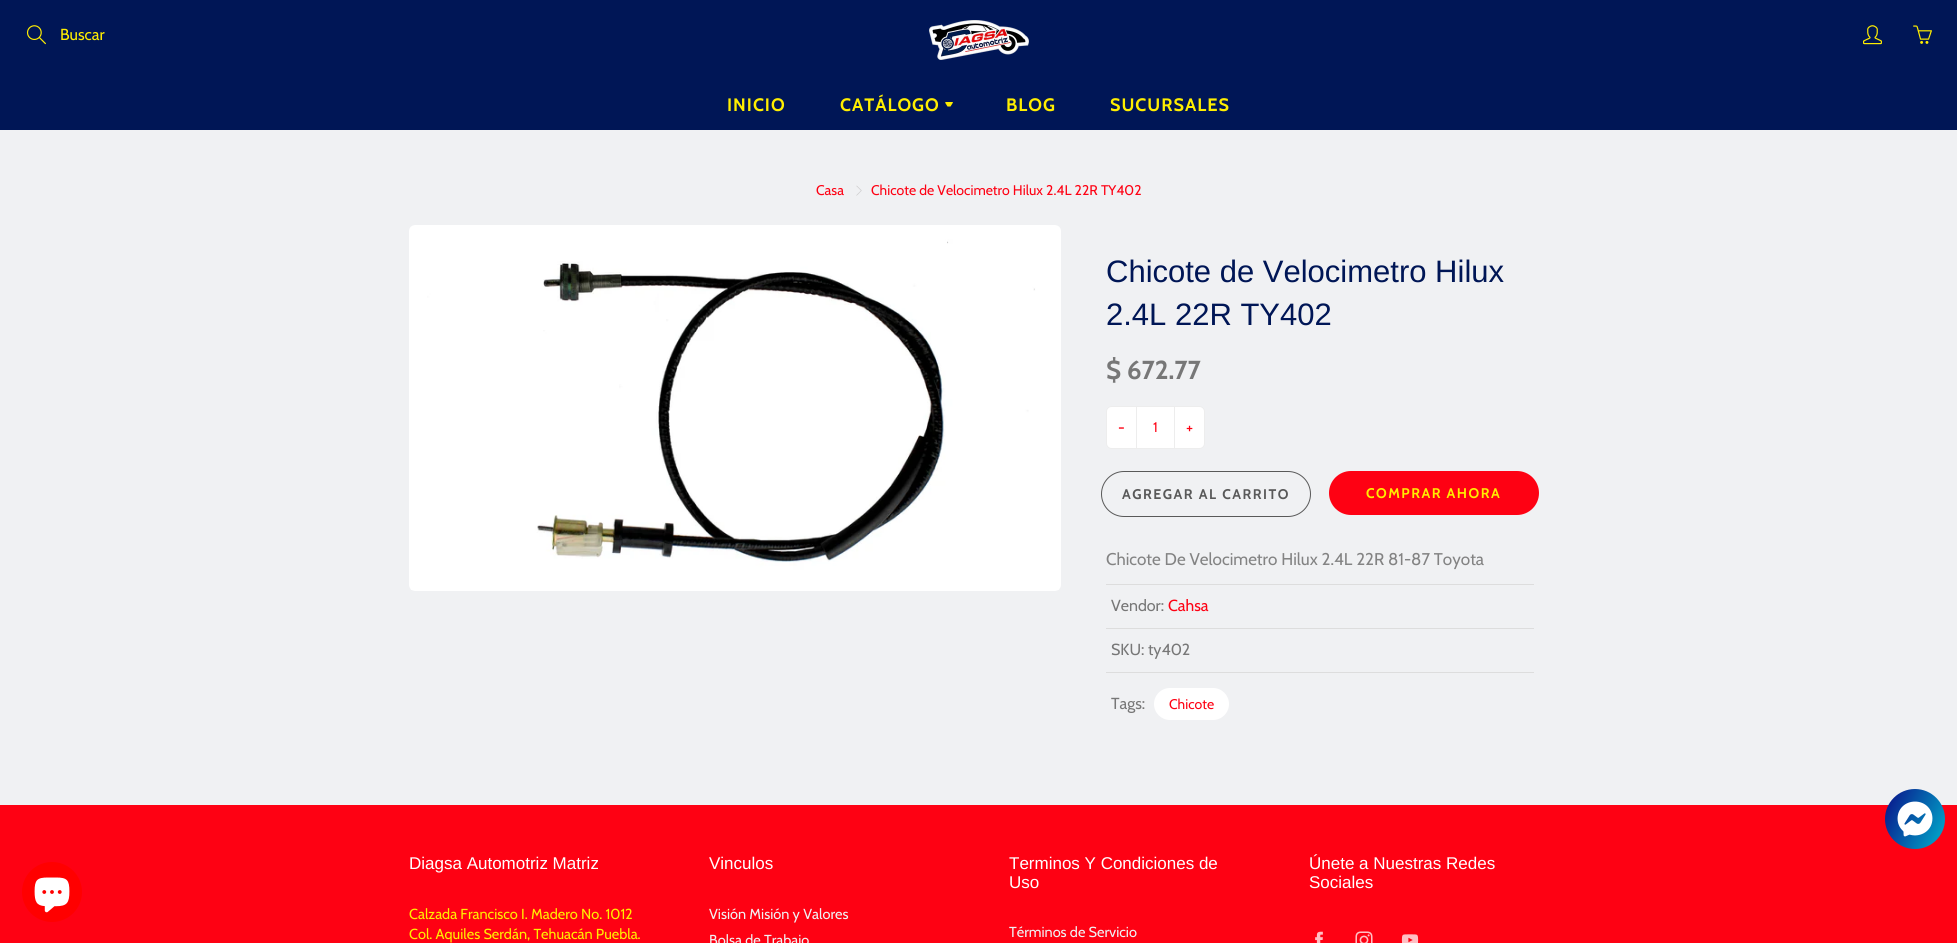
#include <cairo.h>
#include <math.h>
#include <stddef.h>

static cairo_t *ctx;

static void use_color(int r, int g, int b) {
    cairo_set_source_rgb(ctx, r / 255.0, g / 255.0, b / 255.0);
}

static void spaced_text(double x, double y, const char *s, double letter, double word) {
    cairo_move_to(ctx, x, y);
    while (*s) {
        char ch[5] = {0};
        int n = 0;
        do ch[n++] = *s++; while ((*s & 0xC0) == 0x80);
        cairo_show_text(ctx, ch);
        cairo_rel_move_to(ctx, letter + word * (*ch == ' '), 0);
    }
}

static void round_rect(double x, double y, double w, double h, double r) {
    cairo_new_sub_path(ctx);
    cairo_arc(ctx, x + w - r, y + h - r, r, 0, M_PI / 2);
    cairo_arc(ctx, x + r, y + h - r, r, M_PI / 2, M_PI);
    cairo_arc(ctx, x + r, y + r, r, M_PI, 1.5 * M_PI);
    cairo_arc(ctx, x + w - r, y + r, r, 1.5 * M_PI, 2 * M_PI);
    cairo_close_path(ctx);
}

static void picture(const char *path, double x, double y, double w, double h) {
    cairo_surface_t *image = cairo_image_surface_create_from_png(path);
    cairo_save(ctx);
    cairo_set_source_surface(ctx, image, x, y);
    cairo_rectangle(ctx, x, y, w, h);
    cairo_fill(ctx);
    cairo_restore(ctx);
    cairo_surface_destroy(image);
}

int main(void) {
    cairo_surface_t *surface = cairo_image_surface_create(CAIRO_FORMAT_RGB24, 1957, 943);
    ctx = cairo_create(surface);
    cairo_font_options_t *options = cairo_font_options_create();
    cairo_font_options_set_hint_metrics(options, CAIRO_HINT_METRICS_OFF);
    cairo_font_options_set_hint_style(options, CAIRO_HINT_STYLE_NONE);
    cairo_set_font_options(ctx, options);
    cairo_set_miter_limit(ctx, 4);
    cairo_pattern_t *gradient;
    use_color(240, 241, 243);
    cairo_paint(ctx);
    use_color(0, 22, 86);
    cairo_rectangle(ctx, 0, 0, 1957, 130);
    cairo_fill(ctx);
    picture("img1.png", 26, 25, 20, 20);
    cairo_select_font_face(ctx, "Cabin", CAIRO_FONT_SLANT_NORMAL, CAIRO_FONT_WEIGHT_NORMAL);
    cairo_set_font_size(ctx, 16);
    use_color(255, 238, 0);
    cairo_move_to(ctx, 60, 40);
    cairo_show_text(ctx, "Buscar");
    picture("img2.png", 929, 20, 100, 40);
    picture("img3.png", 1863, 25, 19, 20);
    picture("img4.png", 1913, 25, 19, 19);
    cairo_select_font_face(ctx, "Cabin", CAIRO_FONT_SLANT_NORMAL, CAIRO_FONT_WEIGHT_BOLD);
    cairo_set_font_size(ctx, 18);
    spaced_text(727, 111, "INICIO", 1, 0);
    spaced_text(840, 111, "CATÁLOGO", 1, 0);
    cairo_new_path(ctx);
    cairo_move_to(ctx, 946, 102);
    cairo_line_to(ctx, 945, 102.5);
    cairo_line_to(ctx, 947.5, 106.5);
    cairo_line_to(ctx, 950.5, 106.5);
    cairo_line_to(ctx, 953, 102.5);
    cairo_line_to(ctx, 952.5, 102);
    cairo_close_path(ctx);
    cairo_fill(ctx);
    spaced_text(1006, 111, "BLOG", 1, 0);
    spaced_text(1110, 111, "SUCURSALES", 1, 0);
    cairo_select_font_face(ctx, "Cabin", CAIRO_FONT_SLANT_NORMAL, CAIRO_FONT_WEIGHT_NORMAL);
    cairo_set_font_size(ctx, 14);
    use_color(254, 1, 19);
    cairo_move_to(ctx, 816, 195);
    cairo_show_text(ctx, "Casa");
    picture("img5.png", 856, 185, 6, 11);
    cairo_move_to(ctx, 871, 195);
    cairo_show_text(ctx, "Chicote de Velocimetro Hilux 2.4L 22R TY402");
    picture("img6.png", 409, 225, 652, 366);
    cairo_select_font_face(ctx, "Arimo", CAIRO_FONT_SLANT_NORMAL, CAIRO_FONT_WEIGHT_NORMAL);
    cairo_set_font_size(ctx, 31);
    use_color(0, 22, 86);
    cairo_move_to(ctx, 1106, 282);
    cairo_show_text(ctx, "Chicote de Velocimetro Hilux");
    cairo_move_to(ctx, 1106, 325);
    cairo_show_text(ctx, "2.4L 22R TY402");
    cairo_select_font_face(ctx, "Cabin", CAIRO_FONT_SLANT_NORMAL, CAIRO_FONT_WEIGHT_BOLD);
    cairo_set_font_size(ctx, 26);
    use_color(119, 119, 119);
    cairo_move_to(ctx, 1106, 379);
    cairo_show_text(ctx, "$ 672.77");
    round_rect(1106.5, 406.5, 98, 42, 5.5);
    use_color(237, 237, 237);
    cairo_set_line_width(ctx, 1);
    cairo_stroke(ctx);
    use_color(255, 255, 255);
    cairo_new_path(ctx);
    cairo_move_to(ctx, 1112, 407);
    cairo_line_to(ctx, 1136, 407);
    cairo_line_to(ctx, 1136, 448);
    cairo_line_to(ctx, 1112, 448);
    cairo_curve_to(ctx, 1109, 448, 1107, 446, 1107, 443);
    cairo_line_to(ctx, 1107, 412);
    cairo_curve_to(ctx, 1107, 409, 1109, 407, 1112, 407);
    cairo_close_path(ctx);
    cairo_fill(ctx);
    cairo_select_font_face(ctx, "Cabin", CAIRO_FONT_SLANT_NORMAL, CAIRO_FONT_WEIGHT_NORMAL);
    cairo_set_font_size(ctx, 16);
    use_color(254, 1, 19);
    cairo_move_to(ctx, 1118, 433);
    cairo_show_text(ctx, "-");
    use_color(255, 255, 255);
    cairo_rectangle(ctx, 1137, 407, 37, 41);
    cairo_fill(ctx);
    use_color(237, 237, 237);
    cairo_rectangle(ctx, 1174, 407, 1, 41);
    cairo_fill(ctx);
    cairo_rectangle(ctx, 1136, 407, 1, 41);
    cairo_fill(ctx);
    cairo_set_font_size(ctx, 14);
    use_color(254, 1, 19);
    cairo_move_to(ctx, 1153, 432);
    cairo_show_text(ctx, "1");
    use_color(255, 255, 255);
    cairo_new_path(ctx);
    cairo_move_to(ctx, 1175, 407);
    cairo_line_to(ctx, 1199, 407);
    cairo_curve_to(ctx, 1202, 407, 1204, 409, 1204, 412);
    cairo_line_to(ctx, 1204, 443);
    cairo_curve_to(ctx, 1204, 446, 1202, 448, 1199, 448);
    cairo_line_to(ctx, 1175, 448);
    cairo_close_path(ctx);
    cairo_fill(ctx);
    cairo_set_font_size(ctx, 16);
    use_color(254, 1, 19);
    cairo_move_to(ctx, 1186, 433);
    cairo_show_text(ctx, "+");
    round_rect(1101.5, 471.5, 209, 45, 22.5);
    use_color(89, 89, 89);
    cairo_stroke(ctx);
    cairo_select_font_face(ctx, "Cabin", CAIRO_FONT_SLANT_NORMAL, CAIRO_FONT_WEIGHT_BOLD);
    cairo_set_font_size(ctx, 14);
    spaced_text(1122, 499, "AGREGAR AL CARRITO", 1.5, 0);
    use_color(254, 1, 19);
    round_rect(1329, 471, 210, 44, 22);
    cairo_fill(ctx);
    use_color(255, 238, 0);
    spaced_text(1366, 498, "COMPRAR AHORA", 1.5, 0);
    cairo_select_font_face(ctx, "Cabin", CAIRO_FONT_SLANT_NORMAL, CAIRO_FONT_WEIGHT_NORMAL);
    cairo_set_font_size(ctx, 17);
    use_color(131, 131, 131);
    cairo_move_to(ctx, 1106, 565);
    cairo_show_text(ctx, "Chicote De Velocimetro Hilux 2.4L 22R 81-87 Toyota");
    use_color(221, 221, 221);
    cairo_rectangle(ctx, 1106, 584, 428, 1);
    cairo_fill(ctx);
    cairo_set_font_size(ctx, 16);
    use_color(119, 119, 119);
    cairo_move_to(ctx, 1111, 611);
    cairo_show_text(ctx, "Vendor:");
    use_color(254, 1, 19);
    cairo_move_to(ctx, 1168, 611);
    cairo_show_text(ctx, "Cahsa");
    use_color(221, 221, 221);
    cairo_rectangle(ctx, 1106, 628, 428, 1);
    cairo_fill(ctx);
    use_color(119, 119, 119);
    cairo_move_to(ctx, 1111, 655);
    cairo_show_text(ctx, "SKU: ty402");
    use_color(221, 221, 221);
    cairo_rectangle(ctx, 1106, 672, 428, 1);
    cairo_fill(ctx);
    use_color(119, 119, 119);
    cairo_move_to(ctx, 1111, 709);
    cairo_show_text(ctx, "Tags:");
    use_color(255, 255, 255);
    round_rect(1154, 688, 75, 32, 16);
    cairo_fill(ctx);
    cairo_set_font_size(ctx, 14);
    use_color(254, 1, 19);
    cairo_move_to(ctx, 1169, 709);
    cairo_show_text(ctx, "Chicote");
    cairo_rectangle(ctx, 0, 805, 1957, 138);
    cairo_fill(ctx);
    cairo_select_font_face(ctx, "Arimo", CAIRO_FONT_SLANT_NORMAL, CAIRO_FONT_WEIGHT_NORMAL);
    cairo_set_font_size(ctx, 17);
    use_color(255, 255, 255);
    cairo_move_to(ctx, 409, 869);
    cairo_show_text(ctx, "Diagsa Automotriz Matriz");
    cairo_select_font_face(ctx, "Cabin", CAIRO_FONT_SLANT_NORMAL, CAIRO_FONT_WEIGHT_NORMAL);
    cairo_set_font_size(ctx, 14.5);
    use_color(255, 238, 0);
    cairo_move_to(ctx, 409, 919);
    cairo_show_text(ctx, "Calzada Francisco I. Madero No. 1012");
    cairo_move_to(ctx, 409, 939);
    cairo_show_text(ctx, "Col. Aquiles Serdán, Tehuacán Puebla.");
    cairo_select_font_face(ctx, "Arimo", CAIRO_FONT_SLANT_NORMAL, CAIRO_FONT_WEIGHT_NORMAL);
    cairo_set_font_size(ctx, 17);
    use_color(255, 255, 255);
    cairo_move_to(ctx, 709, 869);
    cairo_show_text(ctx, "Vinculos");
    cairo_select_font_face(ctx, "Cabin", CAIRO_FONT_SLANT_NORMAL, CAIRO_FONT_WEIGHT_NORMAL);
    cairo_set_font_size(ctx, 14.5);
    use_color(240, 241, 243);
    cairo_move_to(ctx, 709, 919);
    cairo_show_text(ctx, "Visión Misión y Valores");
    cairo_move_to(ctx, 709, 945);
    cairo_show_text(ctx, "Bolsa de Trabajo");
    cairo_select_font_face(ctx, "Arimo", CAIRO_FONT_SLANT_NORMAL, CAIRO_FONT_WEIGHT_NORMAL);
    cairo_set_font_size(ctx, 17);
    use_color(255, 255, 255);
    cairo_move_to(ctx, 1009, 869);
    cairo_show_text(ctx, "Terminos Y Condiciones de");
    cairo_move_to(ctx, 1009, 888);
    cairo_show_text(ctx, "Uso");
    cairo_select_font_face(ctx, "Cabin", CAIRO_FONT_SLANT_NORMAL, CAIRO_FONT_WEIGHT_NORMAL);
    cairo_set_font_size(ctx, 14.5);
    use_color(240, 241, 243);
    cairo_move_to(ctx, 1009, 937);
    cairo_show_text(ctx, "Términos de Servicio");
    cairo_select_font_face(ctx, "Arimo", CAIRO_FONT_SLANT_NORMAL, CAIRO_FONT_WEIGHT_NORMAL);
    cairo_set_font_size(ctx, 17);
    use_color(255, 255, 255);
    cairo_move_to(ctx, 1309, 869);
    cairo_show_text(ctx, "Únete a Nuestras Redes");
    cairo_move_to(ctx, 1309, 888);
    cairo_show_text(ctx, "Sociales");
    picture("img7.png", 1315, 931, 8, 12);
    picture("img8.png", 1355, 931, 18, 12);
    picture("img9.png", 1401, 934, 18, 9);
    gradient = cairo_pattern_create_linear(1879, 802, 1951, 836);
    cairo_pattern_add_color_stop_rgba(gradient, 0, 0.039, 0.055, 0.533, 1);
    cairo_pattern_add_color_stop_rgba(gradient, 1, 0, 0.694, 0.808, 1);
    cairo_set_source(ctx, gradient);
    cairo_pattern_destroy(gradient);
    cairo_arc(ctx, 1915, 819, 30, 0, 2 * M_PI);
    cairo_fill(ctx);
    picture("img10.png", 1897, 801, 36, 36);
    use_color(255, 0, 0);
    cairo_arc(ctx, 52, 892, 30, 0, 2 * M_PI);
    cairo_fill(ctx);
    picture("img11.png", 34, 877, 36, 36);
    cairo_surface_write_to_png(surface, "result.png");
    cairo_font_options_destroy(options);
    cairo_destroy(ctx);
    cairo_surface_destroy(surface);
    return 0;
}
